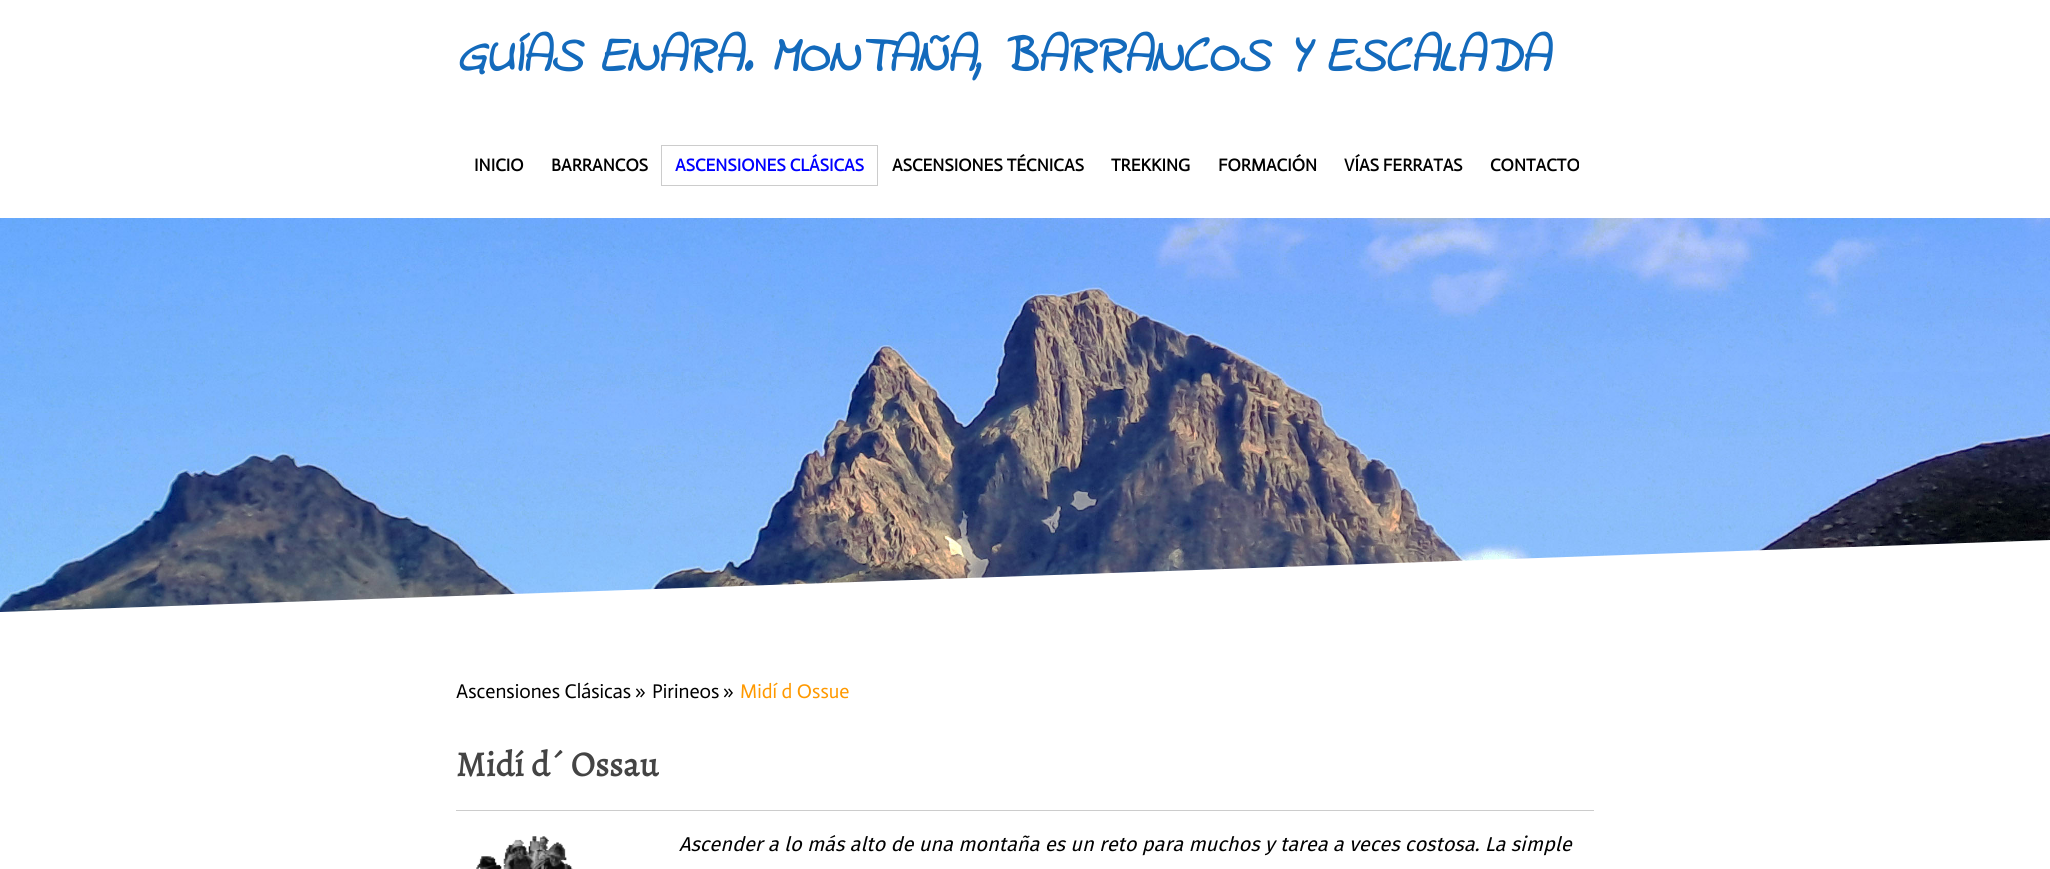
#include <cairo.h>
#include <math.h>
#include <stddef.h>

static cairo_t *ctx;

static void use_color(int r, int g, int b) {
    cairo_set_source_rgb(ctx, r / 255.0, g / 255.0, b / 255.0);
}

static void picture(const char *path, double x, double y, double w, double h) {
    cairo_surface_t *image = cairo_image_surface_create_from_png(path);
    cairo_save(ctx);
    cairo_set_source_surface(ctx, image, x, y);
    cairo_rectangle(ctx, x, y, w, h);
    cairo_fill(ctx);
    cairo_restore(ctx);
    cairo_surface_destroy(image);
}

int main(void) {
    cairo_surface_t *surface = cairo_image_surface_create(CAIRO_FORMAT_RGB24, 2050, 869);
    ctx = cairo_create(surface);
    cairo_font_options_t *options = cairo_font_options_create();
    cairo_font_options_set_hint_metrics(options, CAIRO_HINT_METRICS_OFF);
    cairo_font_options_set_hint_style(options, CAIRO_HINT_STYLE_NONE);
    cairo_set_font_options(ctx, options);
    cairo_set_miter_limit(ctx, 4);
    use_color(255, 255, 255);
    cairo_paint(ctx);
    picture("img1.png", 0, 218, 2050, 394);
    cairo_select_font_face(ctx, "Indie Flower", CAIRO_FONT_SLANT_ITALIC, CAIRO_FONT_WEIGHT_BOLD);
    cairo_set_font_size(ctx, 50);
    use_color(19, 106, 188);
    cairo_move_to(ctx, 456, 71);
    cairo_show_text(ctx, "GUÍAS ENARA. MONTAÑA, BARRANCOS Y ESCALADA");
    cairo_select_font_face(ctx, "Actor", CAIRO_FONT_SLANT_NORMAL, CAIRO_FONT_WEIGHT_BOLD);
    cairo_set_font_size(ctx, 17.5);
    use_color(0, 0, 0);
    cairo_move_to(ctx, 474, 171);
    cairo_show_text(ctx, "INICIO");
    cairo_move_to(ctx, 551, 171);
    cairo_show_text(ctx, "BARRANCOS");
    cairo_rectangle(ctx, 661.5, 145.5, 216, 40);
    use_color(204, 204, 204);
    cairo_set_line_width(ctx, 1);
    cairo_stroke(ctx);
    use_color(0, 0, 255);
    cairo_move_to(ctx, 675, 171);
    cairo_show_text(ctx, "ASCENSIONES CLÁSICAS");
    use_color(0, 0, 0);
    cairo_move_to(ctx, 892, 171);
    cairo_show_text(ctx, "ASCENSIONES TÉCNICAS");
    cairo_move_to(ctx, 1111, 171);
    cairo_show_text(ctx, "TREKKING");
    cairo_move_to(ctx, 1218, 171);
    cairo_show_text(ctx, "FORMACIÓN");
    cairo_move_to(ctx, 1344, 171);
    cairo_show_text(ctx, "VÍAS FERRATAS");
    cairo_move_to(ctx, 1490, 171);
    cairo_show_text(ctx, "CONTACTO");
    cairo_save(ctx);
    cairo_rectangle(ctx, 0, 514, 2050, 125);
    cairo_clip(ctx);
    use_color(255, 255, 255);
    cairo_new_path(ctx);
    cairo_move_to(ctx, 0, 612);
    cairo_line_to(ctx, 2050, 540);
    cairo_line_to(ctx, 2050, 665);
    cairo_line_to(ctx, 0, 737);
    cairo_close_path(ctx);
    cairo_fill(ctx);
    cairo_restore(ctx);
    cairo_select_font_face(ctx, "Actor", CAIRO_FONT_SLANT_NORMAL, CAIRO_FONT_WEIGHT_NORMAL);
    cairo_set_font_size(ctx, 20);
    cairo_move_to(ctx, 456, 698);
    cairo_show_text(ctx, "Ascensiones Clásicas");
    cairo_move_to(ctx, 635, 698);
    cairo_show_text(ctx, "»");
    cairo_move_to(ctx, 652, 698);
    cairo_show_text(ctx, "Pirineos");
    cairo_move_to(ctx, 723, 698);
    cairo_show_text(ctx, "»");
    use_color(255, 153, 0);
    cairo_move_to(ctx, 740, 698);
    cairo_show_text(ctx, "Midí d Ossue");
    cairo_select_font_face(ctx, "Alegreya", CAIRO_FONT_SLANT_NORMAL, CAIRO_FONT_WEIGHT_BOLD);
    cairo_set_font_size(ctx, 35);
    use_color(68, 68, 68);
    cairo_move_to(ctx, 456, 776);
    cairo_show_text(ctx, "Midí d´ Ossau");
    use_color(204, 204, 204);
    cairo_rectangle(ctx, 456, 810, 1138, 1);
    cairo_fill(ctx);
    picture("img2.png", 476, 836, 97, 33);
    cairo_select_font_face(ctx, "Fira Sans", CAIRO_FONT_SLANT_ITALIC, CAIRO_FONT_WEIGHT_NORMAL);
    cairo_set_font_size(ctx, 20);
    use_color(0, 0, 0);
    cairo_move_to(ctx, 679, 851);
    cairo_show_text(ctx, "Ascender a lo más alto de una montaña es un reto para muchos y tarea a veces costosa. La simple");
    cairo_surface_write_to_png(surface, "result.png");
    cairo_font_options_destroy(options);
    cairo_destroy(ctx);
    cairo_surface_destroy(surface);
    return 0;
}
